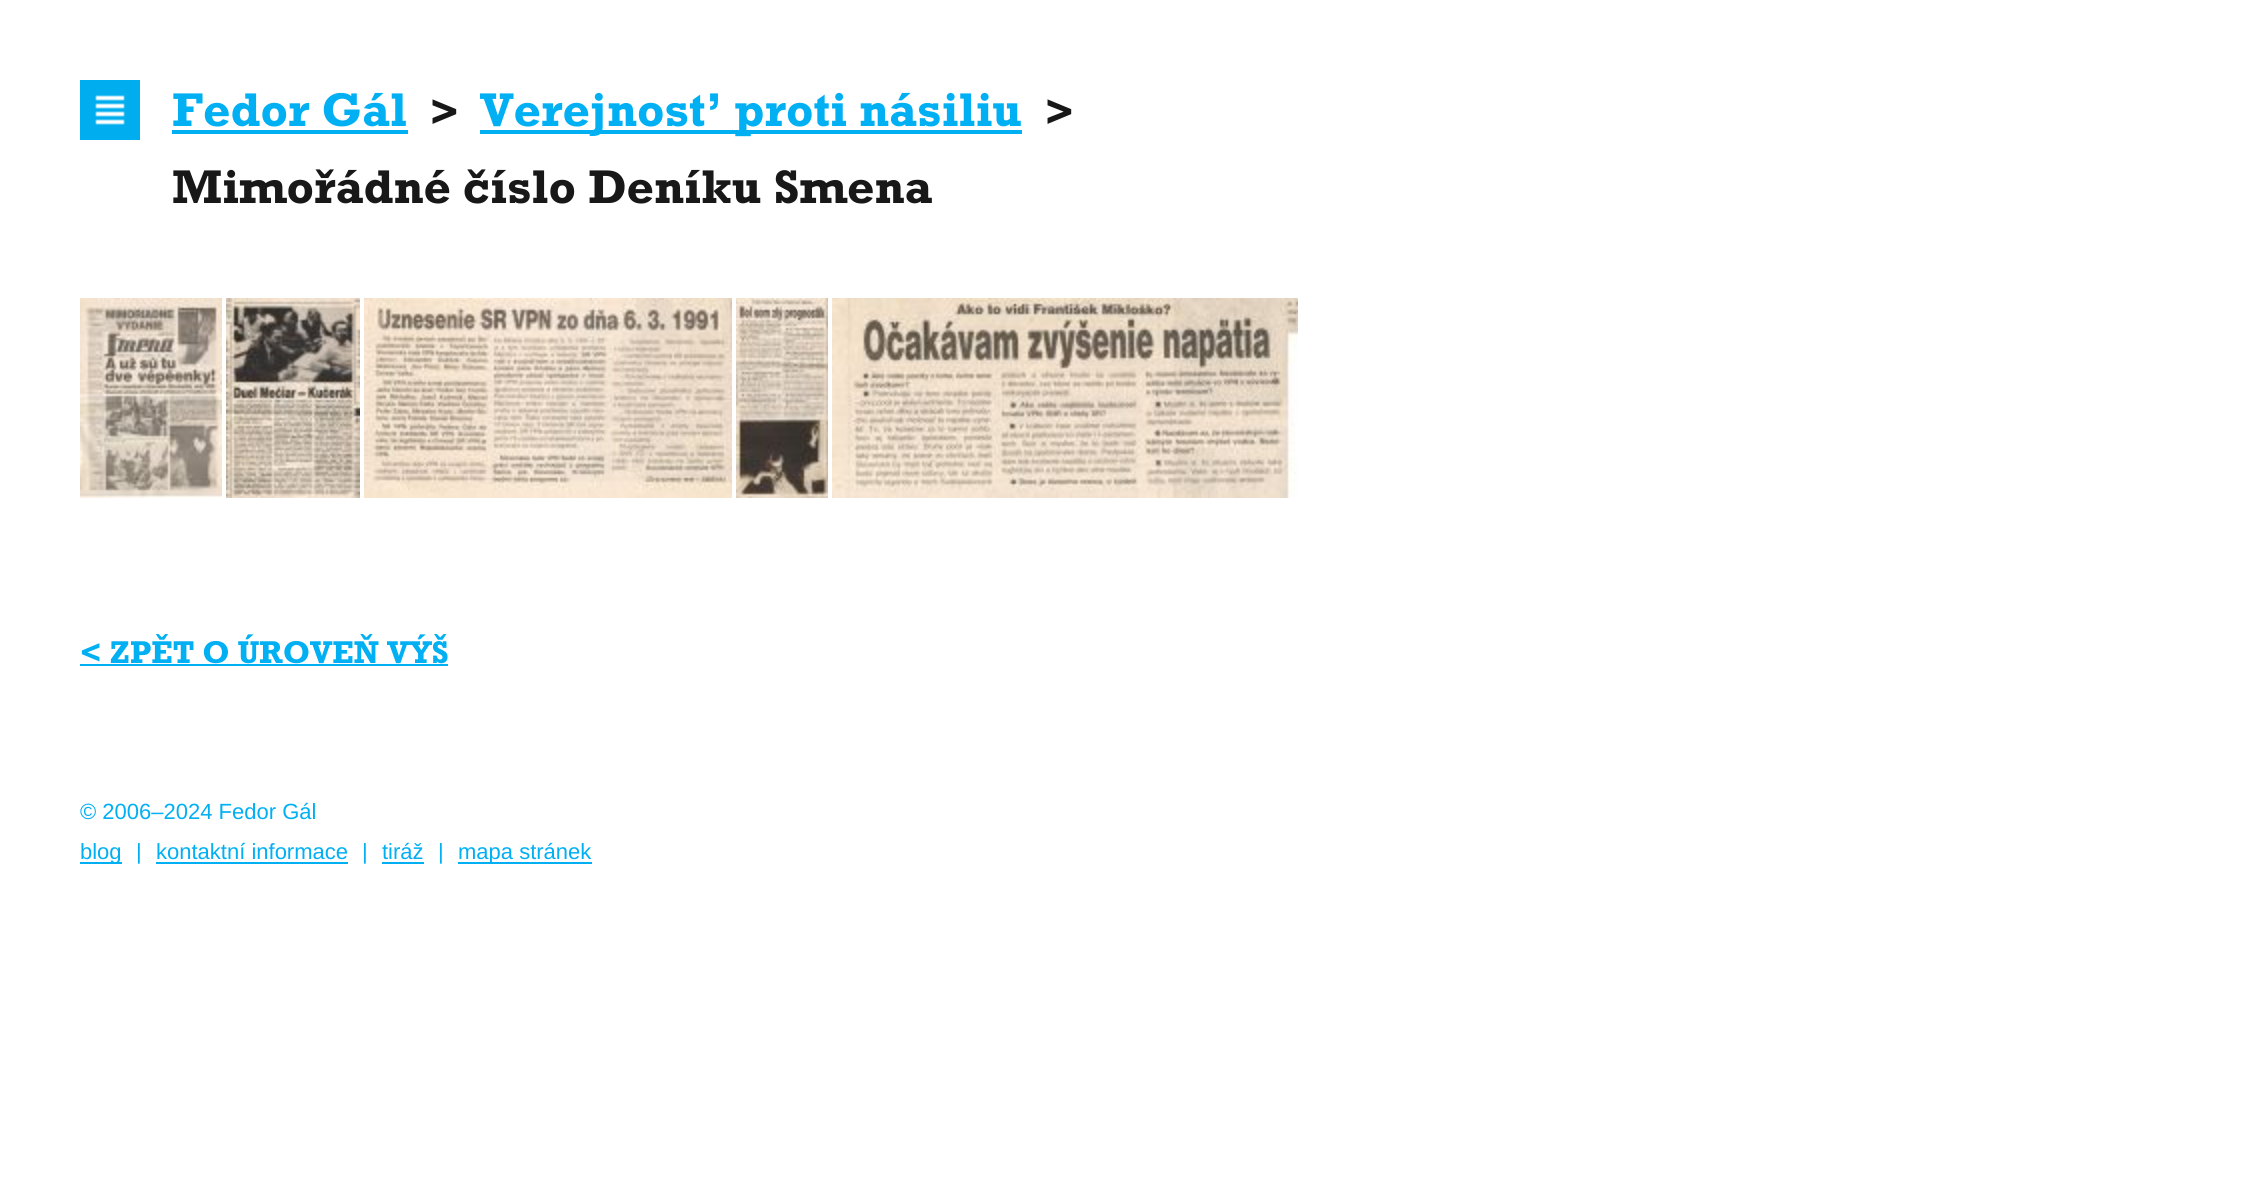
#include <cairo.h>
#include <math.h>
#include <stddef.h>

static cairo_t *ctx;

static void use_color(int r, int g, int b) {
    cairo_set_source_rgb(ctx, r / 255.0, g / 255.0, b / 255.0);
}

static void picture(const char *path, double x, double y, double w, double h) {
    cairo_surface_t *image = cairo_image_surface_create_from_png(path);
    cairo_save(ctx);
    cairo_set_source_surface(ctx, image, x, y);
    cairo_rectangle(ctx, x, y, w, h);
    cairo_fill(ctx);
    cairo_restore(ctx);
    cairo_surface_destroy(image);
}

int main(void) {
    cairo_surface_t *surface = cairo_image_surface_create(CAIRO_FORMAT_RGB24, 2266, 1198);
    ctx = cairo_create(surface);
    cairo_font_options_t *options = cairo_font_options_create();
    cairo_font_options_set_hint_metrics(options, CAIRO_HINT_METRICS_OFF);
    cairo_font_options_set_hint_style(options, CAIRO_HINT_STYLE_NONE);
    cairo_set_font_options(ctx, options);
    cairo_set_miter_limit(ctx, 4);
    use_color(255, 255, 255);
    cairo_paint(ctx);
    use_color(0, 174, 239);
    cairo_rectangle(ctx, 80, 80, 60, 60);
    cairo_fill(ctx);
    picture("img1.png", 95, 95, 30, 30);
    cairo_select_font_face(ctx, "Rockwell", CAIRO_FONT_SLANT_NORMAL, CAIRO_FONT_WEIGHT_BOLD);
    cairo_set_font_size(ctx, 48);
    use_color(1, 175, 243);
    cairo_move_to(ctx, 172, 126);
    cairo_show_text(ctx, "Fedor Gál");
    cairo_rectangle(ctx, 172, 130, 236, 4);
    cairo_fill(ctx);
    cairo_set_font_size(ctx, 43);
    use_color(24, 24, 24);
    cairo_move_to(ctx, 430, 126);
    cairo_show_text(ctx, ">");
    use_color(1, 175, 243);
    cairo_rectangle(ctx, 480, 130, 542, 4);
    cairo_fill(ctx);
    cairo_set_font_size(ctx, 48);
    cairo_move_to(ctx, 480, 126);
    cairo_show_text(ctx, "Verejnosť proti násiliu");
    cairo_set_font_size(ctx, 43);
    use_color(24, 24, 24);
    cairo_move_to(ctx, 1045, 126);
    cairo_show_text(ctx, ">");
    cairo_set_font_size(ctx, 48);
    cairo_move_to(ctx, 172, 203);
    cairo_show_text(ctx, "Mimořádné číslo Deníku Smena");
    picture("img2.png", 80, 298, 142, 200);
    picture("img3.png", 226, 298, 134, 200);
    picture("img4.png", 364, 298, 368, 200);
    picture("img5.png", 736, 298, 92, 200);
    picture("img6.png", 832, 298, 466, 200);
    cairo_set_font_size(ctx, 32);
    use_color(1, 175, 243);
    cairo_move_to(ctx, 80, 663);
    cairo_show_text(ctx, "< ZPĚT O ÚROVEŇ VÝŠ");
    cairo_rectangle(ctx, 80, 664, 368, 2);
    cairo_fill(ctx);
    cairo_select_font_face(ctx, "Liberation Sans", CAIRO_FONT_SLANT_NORMAL, CAIRO_FONT_WEIGHT_NORMAL);
    cairo_set_font_size(ctx, 22);
    cairo_move_to(ctx, 80, 819);
    cairo_show_text(ctx, "© 2006–2024 Fedor Gál");
    cairo_rectangle(ctx, 80, 862, 42, 2);
    cairo_fill(ctx);
    cairo_move_to(ctx, 80, 859);
    cairo_show_text(ctx, "blog");
    cairo_move_to(ctx, 136, 859);
    cairo_show_text(ctx, "|");
    cairo_move_to(ctx, 156, 859);
    cairo_show_text(ctx, "kontaktní informace");
    cairo_rectangle(ctx, 156, 862, 192, 2);
    cairo_fill(ctx);
    cairo_move_to(ctx, 362, 859);
    cairo_show_text(ctx, "|");
    cairo_move_to(ctx, 382, 859);
    cairo_show_text(ctx, "tiráž");
    cairo_rectangle(ctx, 382, 862, 42, 2);
    cairo_fill(ctx);
    cairo_move_to(ctx, 438, 859);
    cairo_show_text(ctx, "|");
    cairo_rectangle(ctx, 458, 862, 134, 2);
    cairo_fill(ctx);
    cairo_move_to(ctx, 458, 859);
    cairo_show_text(ctx, "mapa stránek");
    cairo_surface_write_to_png(surface, "result.png");
    cairo_font_options_destroy(options);
    cairo_destroy(ctx);
    cairo_surface_destroy(surface);
    return 0;
}
